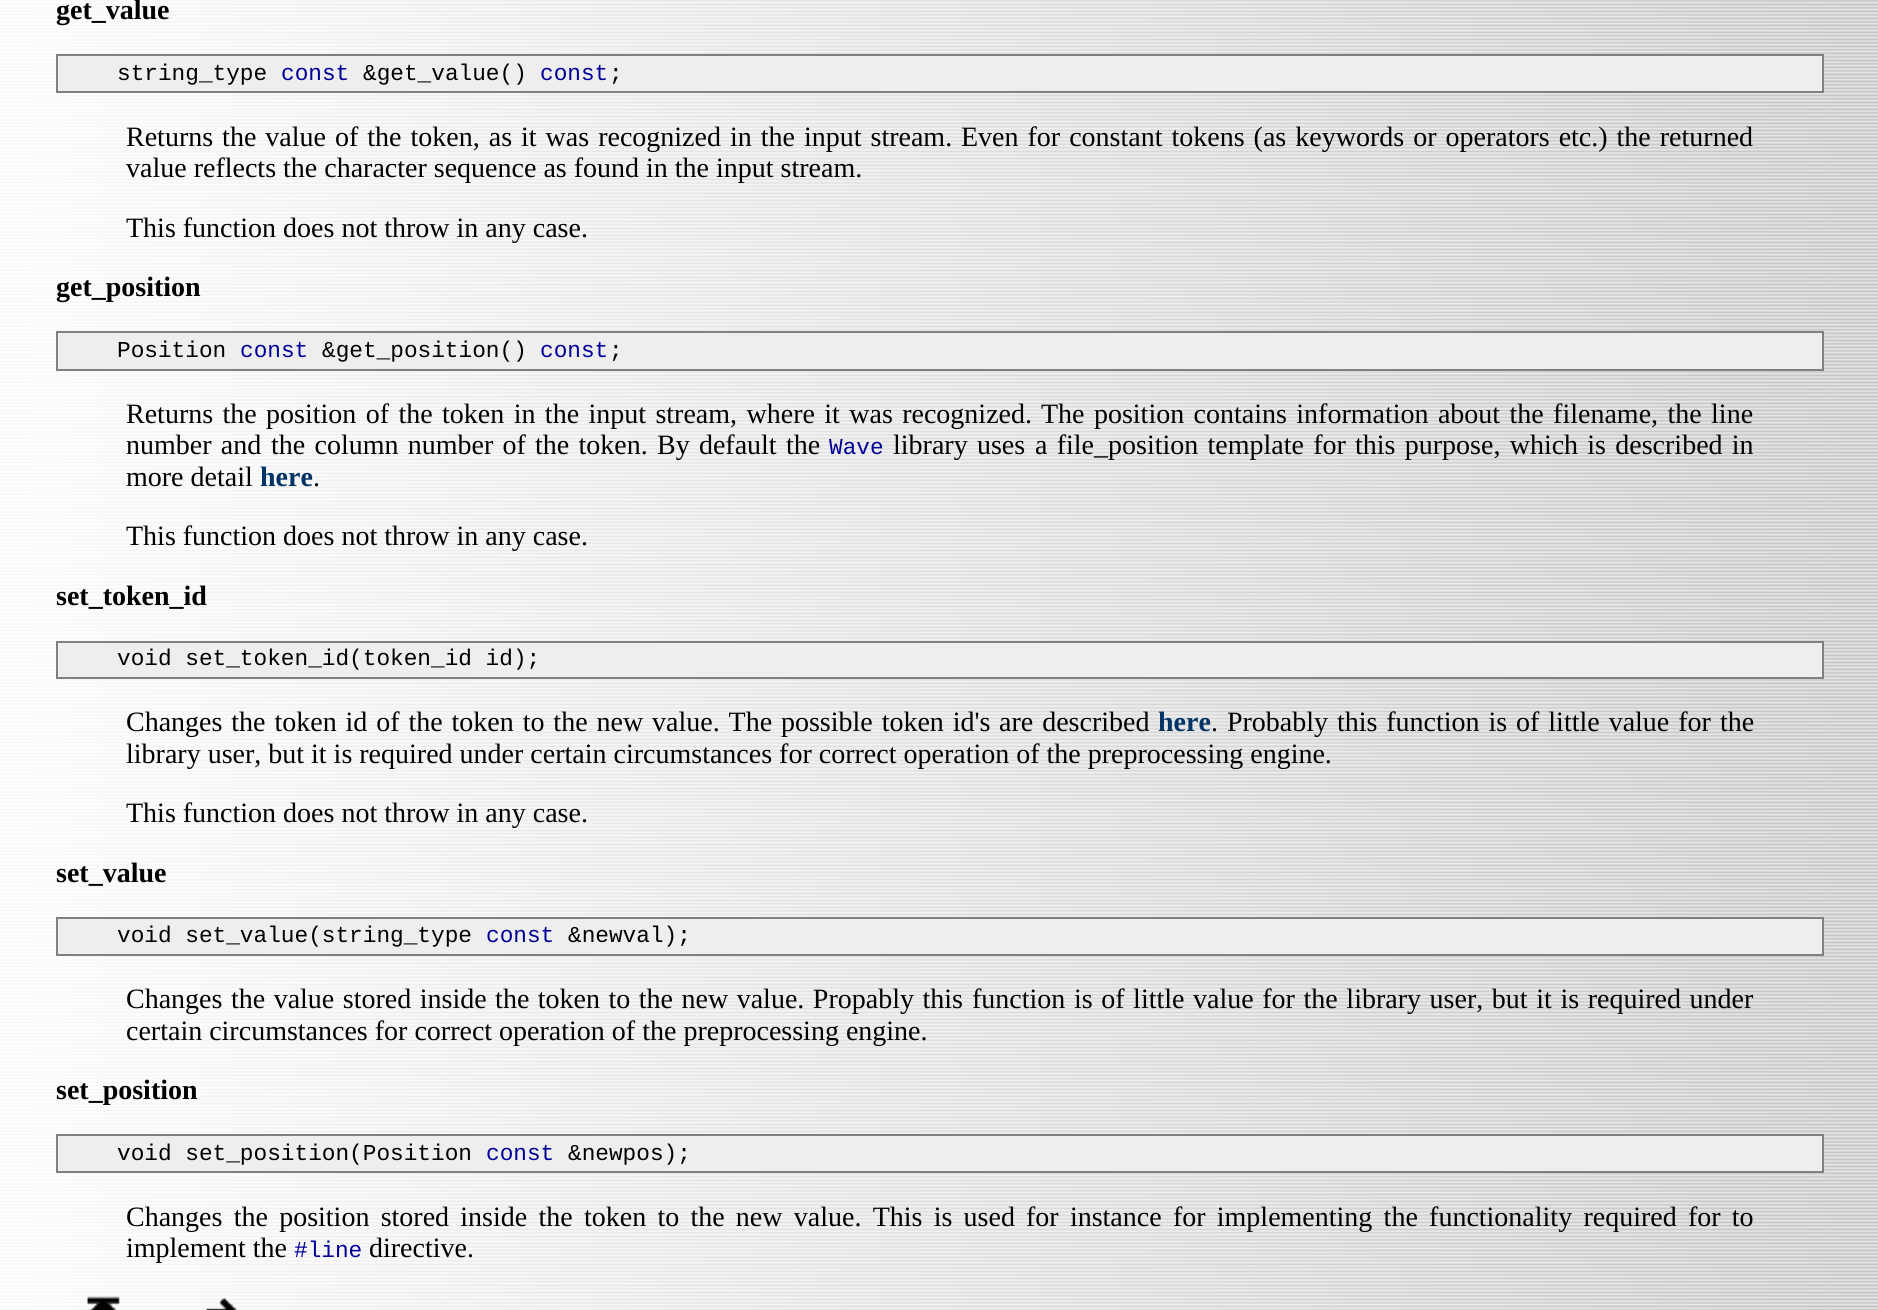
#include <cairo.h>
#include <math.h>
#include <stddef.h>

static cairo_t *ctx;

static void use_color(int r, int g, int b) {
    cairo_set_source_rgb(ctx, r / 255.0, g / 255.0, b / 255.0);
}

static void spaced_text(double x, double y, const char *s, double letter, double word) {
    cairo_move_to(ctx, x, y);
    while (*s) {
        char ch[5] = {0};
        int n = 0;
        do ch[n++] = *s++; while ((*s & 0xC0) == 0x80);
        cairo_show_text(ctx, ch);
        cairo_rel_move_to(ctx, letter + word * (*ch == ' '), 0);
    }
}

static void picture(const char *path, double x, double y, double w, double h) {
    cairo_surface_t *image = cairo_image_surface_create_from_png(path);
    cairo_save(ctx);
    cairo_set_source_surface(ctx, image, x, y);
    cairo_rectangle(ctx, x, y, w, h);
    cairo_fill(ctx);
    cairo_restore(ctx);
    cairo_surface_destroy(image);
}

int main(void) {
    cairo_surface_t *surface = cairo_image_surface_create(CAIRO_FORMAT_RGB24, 1878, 1310);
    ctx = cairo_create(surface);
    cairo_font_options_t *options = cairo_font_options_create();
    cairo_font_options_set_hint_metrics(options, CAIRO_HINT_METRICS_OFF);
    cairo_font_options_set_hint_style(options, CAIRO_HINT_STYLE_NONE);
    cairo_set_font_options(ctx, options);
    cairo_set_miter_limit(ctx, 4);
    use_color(255, 255, 255);
    cairo_paint(ctx);
    picture("img1.png", 0, 0, 1878, 1310);
    cairo_select_font_face(ctx, "Liberation Serif", CAIRO_FONT_SLANT_NORMAL, CAIRO_FONT_WEIGHT_BOLD);
    cairo_set_font_size(ctx, 28);
    use_color(0, 0, 0);
    cairo_move_to(ctx, 56, 19);
    cairo_show_text(ctx, "get_value");
    use_color(238, 238, 238);
    cairo_rectangle(ctx, 57, 55, 1766, 37);
    cairo_fill_preserve(ctx);
    use_color(128, 128, 128);
    cairo_stroke(ctx);
    cairo_select_font_face(ctx, "Liberation Mono", CAIRO_FONT_SLANT_NORMAL, CAIRO_FONT_WEIGHT_NORMAL);
    cairo_set_font_size(ctx, 22.75);
    use_color(0, 0, 0);
    cairo_move_to(ctx, 117, 80);
    cairo_show_text(ctx, "string_type");
    use_color(0, 0, 153);
    cairo_move_to(ctx, 281, 80);
    cairo_show_text(ctx, "const");
    use_color(0, 0, 0);
    cairo_move_to(ctx, 363, 80);
    cairo_show_text(ctx, "&get_value()");
    use_color(0, 0, 153);
    cairo_move_to(ctx, 540, 80);
    cairo_show_text(ctx, "const");
    use_color(0, 0, 0);
    cairo_move_to(ctx, 609, 80);
    cairo_show_text(ctx, ";");
    cairo_select_font_face(ctx, "Liberation Serif", CAIRO_FONT_SLANT_NORMAL, CAIRO_FONT_WEIGHT_NORMAL);
    cairo_set_font_size(ctx, 28);
    spaced_text(126, 146, "Returns the value of the token, as it was recognized in the input stream.", 0, 2);
    spaced_text(961, 146, "Even for constant tokens (as keywords or operators etc.) the returned", 0, 2);
    cairo_move_to(ctx, 126, 177);
    cairo_show_text(ctx, "value reflects the character sequence as found in the input stream.");
    cairo_move_to(ctx, 126, 237);
    cairo_show_text(ctx, "This function does not throw in any case.");
    cairo_select_font_face(ctx, "Liberation Serif", CAIRO_FONT_SLANT_NORMAL, CAIRO_FONT_WEIGHT_BOLD);
    cairo_move_to(ctx, 56, 296);
    cairo_show_text(ctx, "get_position");
    use_color(238, 238, 238);
    cairo_rectangle(ctx, 57, 332, 1766, 38);
    cairo_fill_preserve(ctx);
    use_color(128, 128, 128);
    cairo_stroke(ctx);
    cairo_select_font_face(ctx, "Liberation Mono", CAIRO_FONT_SLANT_NORMAL, CAIRO_FONT_WEIGHT_NORMAL);
    cairo_set_font_size(ctx, 22.75);
    use_color(0, 0, 0);
    cairo_move_to(ctx, 117, 357);
    cairo_show_text(ctx, "Position");
    use_color(0, 0, 153);
    cairo_move_to(ctx, 240, 357);
    cairo_show_text(ctx, "const");
    use_color(0, 0, 0);
    cairo_move_to(ctx, 322, 357);
    cairo_show_text(ctx, "&get_position()");
    use_color(0, 0, 153);
    cairo_move_to(ctx, 540, 357);
    cairo_show_text(ctx, "const");
    use_color(0, 0, 0);
    cairo_move_to(ctx, 609, 357);
    cairo_show_text(ctx, ";");
    cairo_select_font_face(ctx, "Liberation Serif", CAIRO_FONT_SLANT_NORMAL, CAIRO_FONT_WEIGHT_NORMAL);
    cairo_set_font_size(ctx, 28);
    spaced_text(126, 423, "Returns the position of the token in the input stream, where it was recognized.", 0, 2.4);
    spaced_text(1041, 423, "The position contains information about the filename, the line", 0, 2.4);
    spaced_text(126, 454, "number and", 0, 2.25);
    spaced_text(271, 454, "the column number of the token. By default the", 0, 2.25);
    cairo_select_font_face(ctx, "Liberation Mono", CAIRO_FONT_SLANT_NORMAL, CAIRO_FONT_WEIGHT_NORMAL);
    cairo_set_font_size(ctx, 22.75);
    use_color(0, 0, 153);
    cairo_move_to(ctx, 829, 454);
    cairo_show_text(ctx, "Wave");
    cairo_select_font_face(ctx, "Liberation Serif", CAIRO_FONT_SLANT_NORMAL, CAIRO_FONT_WEIGHT_NORMAL);
    cairo_set_font_size(ctx, 28);
    use_color(0, 0, 0);
    spaced_text(893, 454, "library uses", 0, 2.25);
    spaced_text(1035, 454, "a file_position template for this purpose, which is described in", 0, 2.25);
    cairo_move_to(ctx, 126, 486);
    cairo_show_text(ctx, "more detail");
    cairo_select_font_face(ctx, "Liberation Serif", CAIRO_FONT_SLANT_NORMAL, CAIRO_FONT_WEIGHT_BOLD);
    use_color(0, 51, 102);
    cairo_move_to(ctx, 260, 486);
    cairo_show_text(ctx, "here");
    cairo_select_font_face(ctx, "Liberation Serif", CAIRO_FONT_SLANT_NORMAL, CAIRO_FONT_WEIGHT_NORMAL);
    use_color(0, 0, 0);
    cairo_move_to(ctx, 313, 486);
    cairo_show_text(ctx, ".");
    cairo_move_to(ctx, 126, 545);
    cairo_show_text(ctx, "This function does not throw in any case.");
    cairo_select_font_face(ctx, "Liberation Serif", CAIRO_FONT_SLANT_NORMAL, CAIRO_FONT_WEIGHT_BOLD);
    cairo_move_to(ctx, 56, 605);
    cairo_show_text(ctx, "set_token_id");
    use_color(238, 238, 238);
    cairo_rectangle(ctx, 57, 642, 1766, 36);
    cairo_fill_preserve(ctx);
    use_color(128, 128, 128);
    cairo_stroke(ctx);
    cairo_select_font_face(ctx, "Liberation Mono", CAIRO_FONT_SLANT_NORMAL, CAIRO_FONT_WEIGHT_NORMAL);
    cairo_set_font_size(ctx, 22.75);
    use_color(0, 0, 0);
    cairo_move_to(ctx, 117, 665);
    cairo_show_text(ctx, "void set_token_id(token_id id);");
    cairo_select_font_face(ctx, "Liberation Serif", CAIRO_FONT_SLANT_NORMAL, CAIRO_FONT_WEIGHT_NORMAL);
    cairo_set_font_size(ctx, 28);
    spaced_text(126, 731, "Changes the token id of the token to the new value. The possible token id's", 0, 1.9);
    spaced_text(999, 731, "are described", 0, 2);
    cairo_select_font_face(ctx, "Liberation Serif", CAIRO_FONT_SLANT_NORMAL, CAIRO_FONT_WEIGHT_BOLD);
    use_color(0, 51, 102);
    cairo_move_to(ctx, 1158, 731);
    cairo_show_text(ctx, "here");
    cairo_select_font_face(ctx, "Liberation Serif", CAIRO_FONT_SLANT_NORMAL, CAIRO_FONT_WEIGHT_NORMAL);
    use_color(0, 0, 0);
    spaced_text(1211, 731, ". Probably this function is", 0, 1.9);
    spaced_text(1516, 731, "of little value for the", 0, 2);
    cairo_move_to(ctx, 126, 763);
    cairo_show_text(ctx, "library user, but it is required under certain circumstances for correct operation of the preprocessing engine.");
    cairo_move_to(ctx, 126, 822);
    cairo_show_text(ctx, "This function does not throw in any case.");
    cairo_select_font_face(ctx, "Liberation Serif", CAIRO_FONT_SLANT_NORMAL, CAIRO_FONT_WEIGHT_BOLD);
    cairo_move_to(ctx, 56, 882);
    cairo_show_text(ctx, "set_value");
    use_color(238, 238, 238);
    cairo_rectangle(ctx, 57, 918, 1766, 37);
    cairo_fill_preserve(ctx);
    use_color(128, 128, 128);
    cairo_stroke(ctx);
    cairo_select_font_face(ctx, "Liberation Mono", CAIRO_FONT_SLANT_NORMAL, CAIRO_FONT_WEIGHT_NORMAL);
    cairo_set_font_size(ctx, 22.75);
    use_color(0, 0, 0);
    cairo_move_to(ctx, 117, 942);
    cairo_show_text(ctx, "void set_value(string_type");
    use_color(0, 0, 153);
    cairo_move_to(ctx, 486, 942);
    cairo_show_text(ctx, "const");
    use_color(0, 0, 0);
    cairo_move_to(ctx, 568, 942);
    cairo_show_text(ctx, "&newval);");
    cairo_select_font_face(ctx, "Liberation Serif", CAIRO_FONT_SLANT_NORMAL, CAIRO_FONT_WEIGHT_NORMAL);
    cairo_set_font_size(ctx, 28);
    spaced_text(126, 1008, "Changes the value stored inside the token to the new value. Propably this", 0, 1.5);
    spaced_text(972, 1008, "function is of little value for the library user, but it is required under", 0, 1.6);
    cairo_move_to(ctx, 126, 1040);
    cairo_show_text(ctx, "certain circumstances for correct operation of the preprocessing engine.");
    cairo_select_font_face(ctx, "Liberation Serif", CAIRO_FONT_SLANT_NORMAL, CAIRO_FONT_WEIGHT_BOLD);
    cairo_move_to(ctx, 56, 1099);
    cairo_show_text(ctx, "set_position");
    use_color(238, 238, 238);
    cairo_rectangle(ctx, 57, 1135, 1766, 37);
    cairo_fill_preserve(ctx);
    use_color(128, 128, 128);
    cairo_stroke(ctx);
    cairo_select_font_face(ctx, "Liberation Mono", CAIRO_FONT_SLANT_NORMAL, CAIRO_FONT_WEIGHT_NORMAL);
    cairo_set_font_size(ctx, 22.75);
    use_color(0, 0, 0);
    cairo_move_to(ctx, 117, 1160);
    cairo_show_text(ctx, "void set_position(Position");
    use_color(0, 0, 153);
    cairo_move_to(ctx, 486, 1160);
    cairo_show_text(ctx, "const");
    use_color(0, 0, 0);
    cairo_move_to(ctx, 568, 1160);
    cairo_show_text(ctx, "&newpos);");
    cairo_select_font_face(ctx, "Liberation Serif", CAIRO_FONT_SLANT_NORMAL, CAIRO_FONT_WEIGHT_NORMAL);
    cairo_set_font_size(ctx, 28);
    spaced_text(126, 1226, "Changes the position stored inside the token to the new value. This is used", 0, 4.25);
    spaced_text(1026, 1226, "for instance for implementing the functionality required for to", 0, 4.25);
    cairo_move_to(ctx, 126, 1257);
    cairo_show_text(ctx, "implement the");
    cairo_select_font_face(ctx, "Liberation Mono", CAIRO_FONT_SLANT_NORMAL, CAIRO_FONT_WEIGHT_NORMAL);
    cairo_set_font_size(ctx, 22.75);
    use_color(0, 0, 153);
    cairo_move_to(ctx, 294, 1257);
    cairo_show_text(ctx, "#line");
    cairo_select_font_face(ctx, "Liberation Serif", CAIRO_FONT_SLANT_NORMAL, CAIRO_FONT_WEIGHT_NORMAL);
    cairo_set_font_size(ctx, 28);
    use_color(0, 0, 0);
    cairo_move_to(ctx, 369, 1257);
    cairo_show_text(ctx, "directive.");
    picture("img2.png", 87, 1296, 33, 14);
    picture("img3.png", 206, 1298, 32, 12);
    cairo_surface_write_to_png(surface, "result.png");
    cairo_font_options_destroy(options);
    cairo_destroy(ctx);
    cairo_surface_destroy(surface);
    return 0;
}
